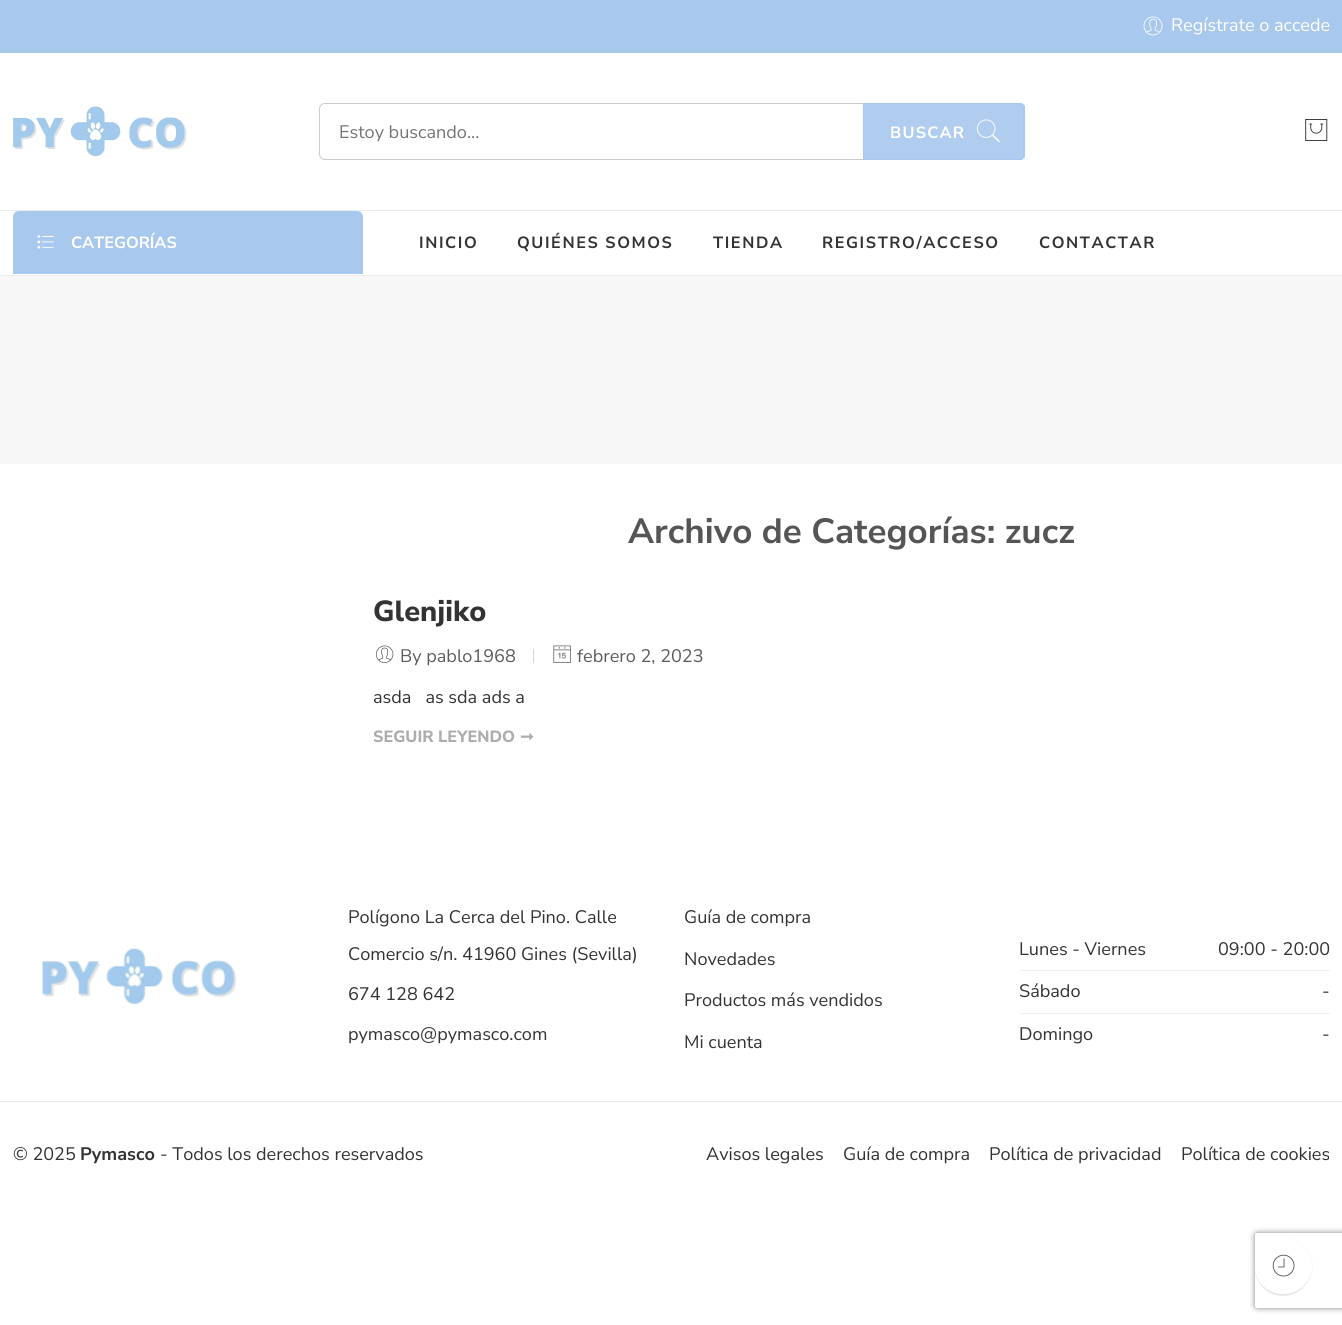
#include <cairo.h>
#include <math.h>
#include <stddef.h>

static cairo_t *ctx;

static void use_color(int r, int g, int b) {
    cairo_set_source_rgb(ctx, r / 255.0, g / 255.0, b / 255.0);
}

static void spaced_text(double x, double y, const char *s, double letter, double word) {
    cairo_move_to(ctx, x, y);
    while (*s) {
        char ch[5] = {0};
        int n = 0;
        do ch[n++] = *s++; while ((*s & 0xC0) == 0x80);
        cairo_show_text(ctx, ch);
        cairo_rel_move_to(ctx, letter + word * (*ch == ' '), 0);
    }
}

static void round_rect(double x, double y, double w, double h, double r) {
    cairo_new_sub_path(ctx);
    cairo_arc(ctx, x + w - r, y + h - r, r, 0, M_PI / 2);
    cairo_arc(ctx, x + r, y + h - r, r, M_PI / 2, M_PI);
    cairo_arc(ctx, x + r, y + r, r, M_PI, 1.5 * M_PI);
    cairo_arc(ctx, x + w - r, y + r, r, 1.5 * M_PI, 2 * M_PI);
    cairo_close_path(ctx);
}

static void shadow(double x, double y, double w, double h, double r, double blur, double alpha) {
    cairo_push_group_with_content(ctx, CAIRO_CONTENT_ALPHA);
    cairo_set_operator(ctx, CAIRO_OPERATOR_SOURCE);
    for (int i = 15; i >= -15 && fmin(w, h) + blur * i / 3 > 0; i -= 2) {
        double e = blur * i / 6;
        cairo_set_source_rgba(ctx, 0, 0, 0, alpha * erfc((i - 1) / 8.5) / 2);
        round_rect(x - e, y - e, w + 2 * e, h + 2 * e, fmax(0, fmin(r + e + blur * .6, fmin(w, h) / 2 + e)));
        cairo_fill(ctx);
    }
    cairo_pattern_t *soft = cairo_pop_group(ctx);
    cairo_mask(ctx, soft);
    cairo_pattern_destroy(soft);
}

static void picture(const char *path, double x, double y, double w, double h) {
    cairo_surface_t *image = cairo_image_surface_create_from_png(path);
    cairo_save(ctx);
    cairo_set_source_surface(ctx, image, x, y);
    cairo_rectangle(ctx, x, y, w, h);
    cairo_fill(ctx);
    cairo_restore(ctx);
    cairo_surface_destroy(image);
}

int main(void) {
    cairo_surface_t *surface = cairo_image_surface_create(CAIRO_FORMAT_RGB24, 1342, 1325);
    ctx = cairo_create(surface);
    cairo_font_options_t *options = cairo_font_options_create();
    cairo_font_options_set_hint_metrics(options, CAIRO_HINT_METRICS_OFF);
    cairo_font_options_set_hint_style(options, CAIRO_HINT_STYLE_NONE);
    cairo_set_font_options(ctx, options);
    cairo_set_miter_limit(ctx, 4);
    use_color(255, 255, 255);
    cairo_paint(ctx);
    use_color(168, 200, 237);
    cairo_rectangle(ctx, 0, 0, 1342, 53);
    cairo_fill(ctx);
    picture("img1.png", 1143, 16, 20, 20);
    cairo_select_font_face(ctx, "Nunito Sans", CAIRO_FONT_SLANT_NORMAL, CAIRO_FONT_WEIGHT_NORMAL);
    cairo_set_font_size(ctx, 18.1);
    use_color(255, 255, 255);
    cairo_move_to(ctx, 1171, 31);
    cairo_show_text(ctx, "Regístrate o accede");
    picture("img2.png", 13, 106, 174, 51);
    round_rect(319.5, 103.5, 704, 56, 5.5);
    use_color(204, 204, 204);
    cairo_set_line_width(ctx, 1);
    cairo_stroke(ctx);
    use_color(117, 117, 117);
    cairo_move_to(ctx, 339, 138);
    cairo_show_text(ctx, "Estoy buscando...");
    cairo_set_source_rgba(ctx, 0.659, 0.784, 0.929, 0.9);
    cairo_new_path(ctx);
    cairo_move_to(ctx, 863, 103);
    cairo_line_to(ctx, 1020, 103);
    cairo_curve_to(ctx, 1023, 103, 1025, 105, 1025, 108);
    cairo_line_to(ctx, 1025, 155);
    cairo_curve_to(ctx, 1025, 158, 1023, 160, 1020, 160);
    cairo_line_to(ctx, 863, 160);
    cairo_close_path(ctx);
    cairo_fill(ctx);
    cairo_set_fill_rule(ctx, CAIRO_FILL_RULE_EVEN_ODD);
    cairo_new_path(ctx);
    cairo_move_to(ctx, 863, 103);
    cairo_line_to(ctx, 863, 160);
    cairo_line_to(ctx, 1020, 160);
    cairo_curve_to(ctx, 1021, 160, 1022, 160, 1023, 159);
    cairo_line_to(ctx, 864, 159);
    cairo_line_to(ctx, 864, 104);
    cairo_line_to(ctx, 1023, 104);
    cairo_line_to(ctx, 1020, 103);
    cairo_close_path(ctx);
    cairo_move_to(ctx, 1024, 105);
    cairo_line_to(ctx, 1024, 158);
    cairo_curve_to(ctx, 1025, 157, 1025, 156, 1025, 155);
    cairo_line_to(ctx, 1025, 108);
    cairo_curve_to(ctx, 1025, 107, 1025, 106, 1024, 105);
    cairo_close_path(ctx);
    cairo_fill(ctx);
    cairo_select_font_face(ctx, "Nunito Sans", CAIRO_FONT_SLANT_NORMAL, CAIRO_FONT_WEIGHT_BOLD);
    cairo_set_font_size(ctx, 16.25);
    use_color(255, 255, 255);
    spaced_text(890, 138, "BUSCAR", 1.25, 0);
    picture("img3.png", 976, 119, 24, 24);
    picture("img4.png", 1305, 119, 23, 22);
    use_color(236, 236, 236);
    cairo_rectangle(ctx, 0, 210, 1342, 1);
    cairo_fill(ctx);
    cairo_rectangle(ctx, 0, 275, 1342, 1);
    cairo_fill(ctx);
    use_color(168, 200, 237);
    cairo_new_path(ctx);
    cairo_move_to(ctx, 19, 211);
    cairo_line_to(ctx, 357, 211);
    cairo_curve_to(ctx, 360.5, 211, 363, 213.5, 363, 217);
    cairo_line_to(ctx, 363, 274);
    cairo_line_to(ctx, 13, 274);
    cairo_line_to(ctx, 13, 217);
    cairo_curve_to(ctx, 13, 213.5, 15.5, 211, 19, 211);
    cairo_close_path(ctx);
    cairo_fill(ctx);
    picture("img5.png", 37, 235, 17, 14);
    use_color(255, 255, 255);
    cairo_move_to(ctx, 71, 248);
    cairo_show_text(ctx, "CATEGORÍAS");
    use_color(51, 51, 51);
    spaced_text(419, 248, "INICIO", 1.6, 0);
    spaced_text(517, 248, "QUIÉNES SOMOS", 1.6, 0);
    spaced_text(713, 248, "TIENDA", 1.6, 0);
    spaced_text(822, 248, "REGISTRO/ACCESO", 1.6, 0);
    spaced_text(1039, 248, "CONTACTAR", 1.6, 0);
    use_color(247, 247, 247);
    cairo_rectangle(ctx, 0, 276, 1342, 188);
    cairo_fill(ctx);
    cairo_set_font_size(ctx, 35);
    use_color(85, 85, 85);
    cairo_move_to(ctx, 628, 543);
    cairo_show_text(ctx, "Archivo de Categorías: zucz");
    cairo_select_font_face(ctx, "Nunito Sans ExtraBold", CAIRO_FONT_SLANT_NORMAL, CAIRO_FONT_WEIGHT_NORMAL);
    cairo_set_font_size(ctx, 29);
    use_color(51, 51, 51);
    cairo_move_to(ctx, 373, 621);
    cairo_show_text(ctx, "Glenjiko");
    picture("img6.png", 375, 645, 19, 18);
    cairo_select_font_face(ctx, "Nunito Sans", CAIRO_FONT_SLANT_NORMAL, CAIRO_FONT_WEIGHT_NORMAL);
    cairo_set_font_size(ctx, 18.1);
    use_color(92, 92, 92);
    cairo_move_to(ctx, 400, 662);
    cairo_show_text(ctx, "By pablo1968");
    use_color(214, 214, 214);
    cairo_rectangle(ctx, 533, 649, 1, 14);
    cairo_fill(ctx);
    picture("img7.png", 553, 645, 18, 18);
    use_color(92, 92, 92);
    cairo_move_to(ctx, 577, 662);
    cairo_show_text(ctx, "febrero 2, 2023");
    use_color(51, 51, 51);
    cairo_move_to(ctx, 373, 703);
    cairo_show_text(ctx, "asda   as sda ads a");
    cairo_select_font_face(ctx, "Nunito Sans ExtraBold", CAIRO_FONT_SLANT_NORMAL, CAIRO_FONT_WEIGHT_NORMAL);
    cairo_set_font_size(ctx, 16.25);
    use_color(173, 173, 173);
    cairo_move_to(ctx, 373, 742);
    cairo_show_text(ctx, "SEGUIR LEYENDO");
    cairo_select_font_face(ctx, "DejaVu Sans", CAIRO_FONT_SLANT_NORMAL, CAIRO_FONT_WEIGHT_BOLD);
    cairo_move_to(ctx, 520, 742);
    cairo_show_text(ctx, "➞");
    picture("img8.png", 42, 948, 195, 57);
    cairo_select_font_face(ctx, "Nunito Sans", CAIRO_FONT_SLANT_NORMAL, CAIRO_FONT_WEIGHT_NORMAL);
    cairo_set_font_size(ctx, 18.1);
    use_color(51, 51, 51);
    cairo_move_to(ctx, 348, 923);
    cairo_show_text(ctx, "Polígono La Cerca del Pino. Calle");
    cairo_move_to(ctx, 348, 960);
    cairo_show_text(ctx, "Comercio s/n. 41960 Gines (Sevilla)");
    cairo_move_to(ctx, 348, 1000);
    cairo_show_text(ctx, "674 128 642");
    cairo_move_to(ctx, 348, 1040);
    cairo_show_text(ctx, "pymasco@pymasco.com");
    cairo_move_to(ctx, 684, 923);
    cairo_show_text(ctx, "Guía de compra");
    cairo_move_to(ctx, 684, 965);
    cairo_show_text(ctx, "Novedades");
    cairo_move_to(ctx, 684, 1006);
    cairo_show_text(ctx, "Productos más vendidos");
    cairo_move_to(ctx, 684, 1048);
    cairo_show_text(ctx, "Mi cuenta");
    use_color(239, 239, 239);
    cairo_rectangle(ctx, 1020, 970, 310, 1);
    cairo_fill(ctx);
    use_color(51, 51, 51);
    cairo_move_to(ctx, 1019, 955);
    cairo_show_text(ctx, "Lunes - Viernes");
    cairo_move_to(ctx, 1218, 955);
    cairo_show_text(ctx, "09:00 - 20:00");
    use_color(239, 239, 239);
    cairo_rectangle(ctx, 1020, 1013, 310, 1);
    cairo_fill(ctx);
    use_color(51, 51, 51);
    cairo_move_to(ctx, 1019, 997);
    cairo_show_text(ctx, "Sábado");
    cairo_move_to(ctx, 1322, 997);
    cairo_show_text(ctx, "-");
    cairo_move_to(ctx, 1019, 1040);
    cairo_show_text(ctx, "Domingo");
    cairo_move_to(ctx, 1322, 1040);
    cairo_show_text(ctx, "-");
    use_color(236, 236, 236);
    cairo_rectangle(ctx, 0, 1101, 1342, 1);
    cairo_fill(ctx);
    use_color(51, 51, 51);
    cairo_move_to(ctx, 13, 1160);
    cairo_show_text(ctx, "© 2025");
    cairo_select_font_face(ctx, "Nunito Sans", CAIRO_FONT_SLANT_NORMAL, CAIRO_FONT_WEIGHT_BOLD);
    cairo_move_to(ctx, 80, 1160);
    cairo_show_text(ctx, "Pymasco");
    cairo_select_font_face(ctx, "Nunito Sans", CAIRO_FONT_SLANT_NORMAL, CAIRO_FONT_WEIGHT_NORMAL);
    cairo_move_to(ctx, 160, 1160);
    cairo_show_text(ctx, "- Todos los derechos reservados");
    cairo_move_to(ctx, 706, 1160);
    cairo_show_text(ctx, "Avisos legales");
    cairo_move_to(ctx, 843, 1160);
    cairo_show_text(ctx, "Guía de compra");
    cairo_move_to(ctx, 989, 1160);
    cairo_show_text(ctx, "Política de privacidad");
    cairo_move_to(ctx, 1181, 1160);
    cairo_show_text(ctx, "Política de cookies");
    cairo_save(ctx);
    cairo_new_path(ctx);
    cairo_move_to(ctx, 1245, 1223);
    cairo_line_to(ctx, 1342, 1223);
    cairo_line_to(ctx, 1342, 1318);
    cairo_line_to(ctx, 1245, 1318);
    cairo_close_path(ctx);
    cairo_move_to(ctx, 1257.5, 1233);
    cairo_line_to(ctx, 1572.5, 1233);
    cairo_curve_to(ctx, 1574, 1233, 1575, 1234, 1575, 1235.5);
    cairo_line_to(ctx, 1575, 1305.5);
    cairo_curve_to(ctx, 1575, 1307, 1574, 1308, 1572.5, 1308);
    cairo_line_to(ctx, 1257.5, 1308);
    cairo_curve_to(ctx, 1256, 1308, 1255, 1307, 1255, 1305.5);
    cairo_line_to(ctx, 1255, 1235.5);
    cairo_curve_to(ctx, 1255, 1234, 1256, 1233, 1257.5, 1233);
    cairo_close_path(ctx);
    cairo_clip(ctx);
    use_color(128, 128, 128);
    shadow(1255, 1233, 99, 75, 2.5, 3, 1);
    cairo_restore(ctx);
    round_rect(1255.3, 1238.3, 57.4, 56.4, 28.2);
    use_color(247, 247, 247);
    cairo_set_line_width(ctx, 0.6);
    cairo_stroke(ctx);
    cairo_set_source_rgba(ctx, 0, 0, 0, 0.08);
    cairo_set_fill_rule(ctx, CAIRO_FILL_RULE_WINDING);
    cairo_new_path(ctx);
    cairo_move_to(ctx, 1255, 1267);
    cairo_curve_to(ctx, 1255, 1273, 1256, 1279, 1260, 1284);
    cairo_curve_to(ctx, 1275, 1306, 1309, 1296, 1311, 1270);
    cairo_curve_to(ctx, 1306, 1303, 1256, 1300, 1255, 1267);
    cairo_close_path(ctx);
    cairo_fill(ctx);
    use_color(255, 255, 255);
    cairo_arc(ctx, 1283, 1266, 28, 0, 2 * M_PI);
    cairo_fill(ctx);
    picture("img9.png", 1272, 1254, 23, 23);
    cairo_surface_write_to_png(surface, "result.png");
    cairo_font_options_destroy(options);
    cairo_destroy(ctx);
    cairo_surface_destroy(surface);
    return 0;
}
